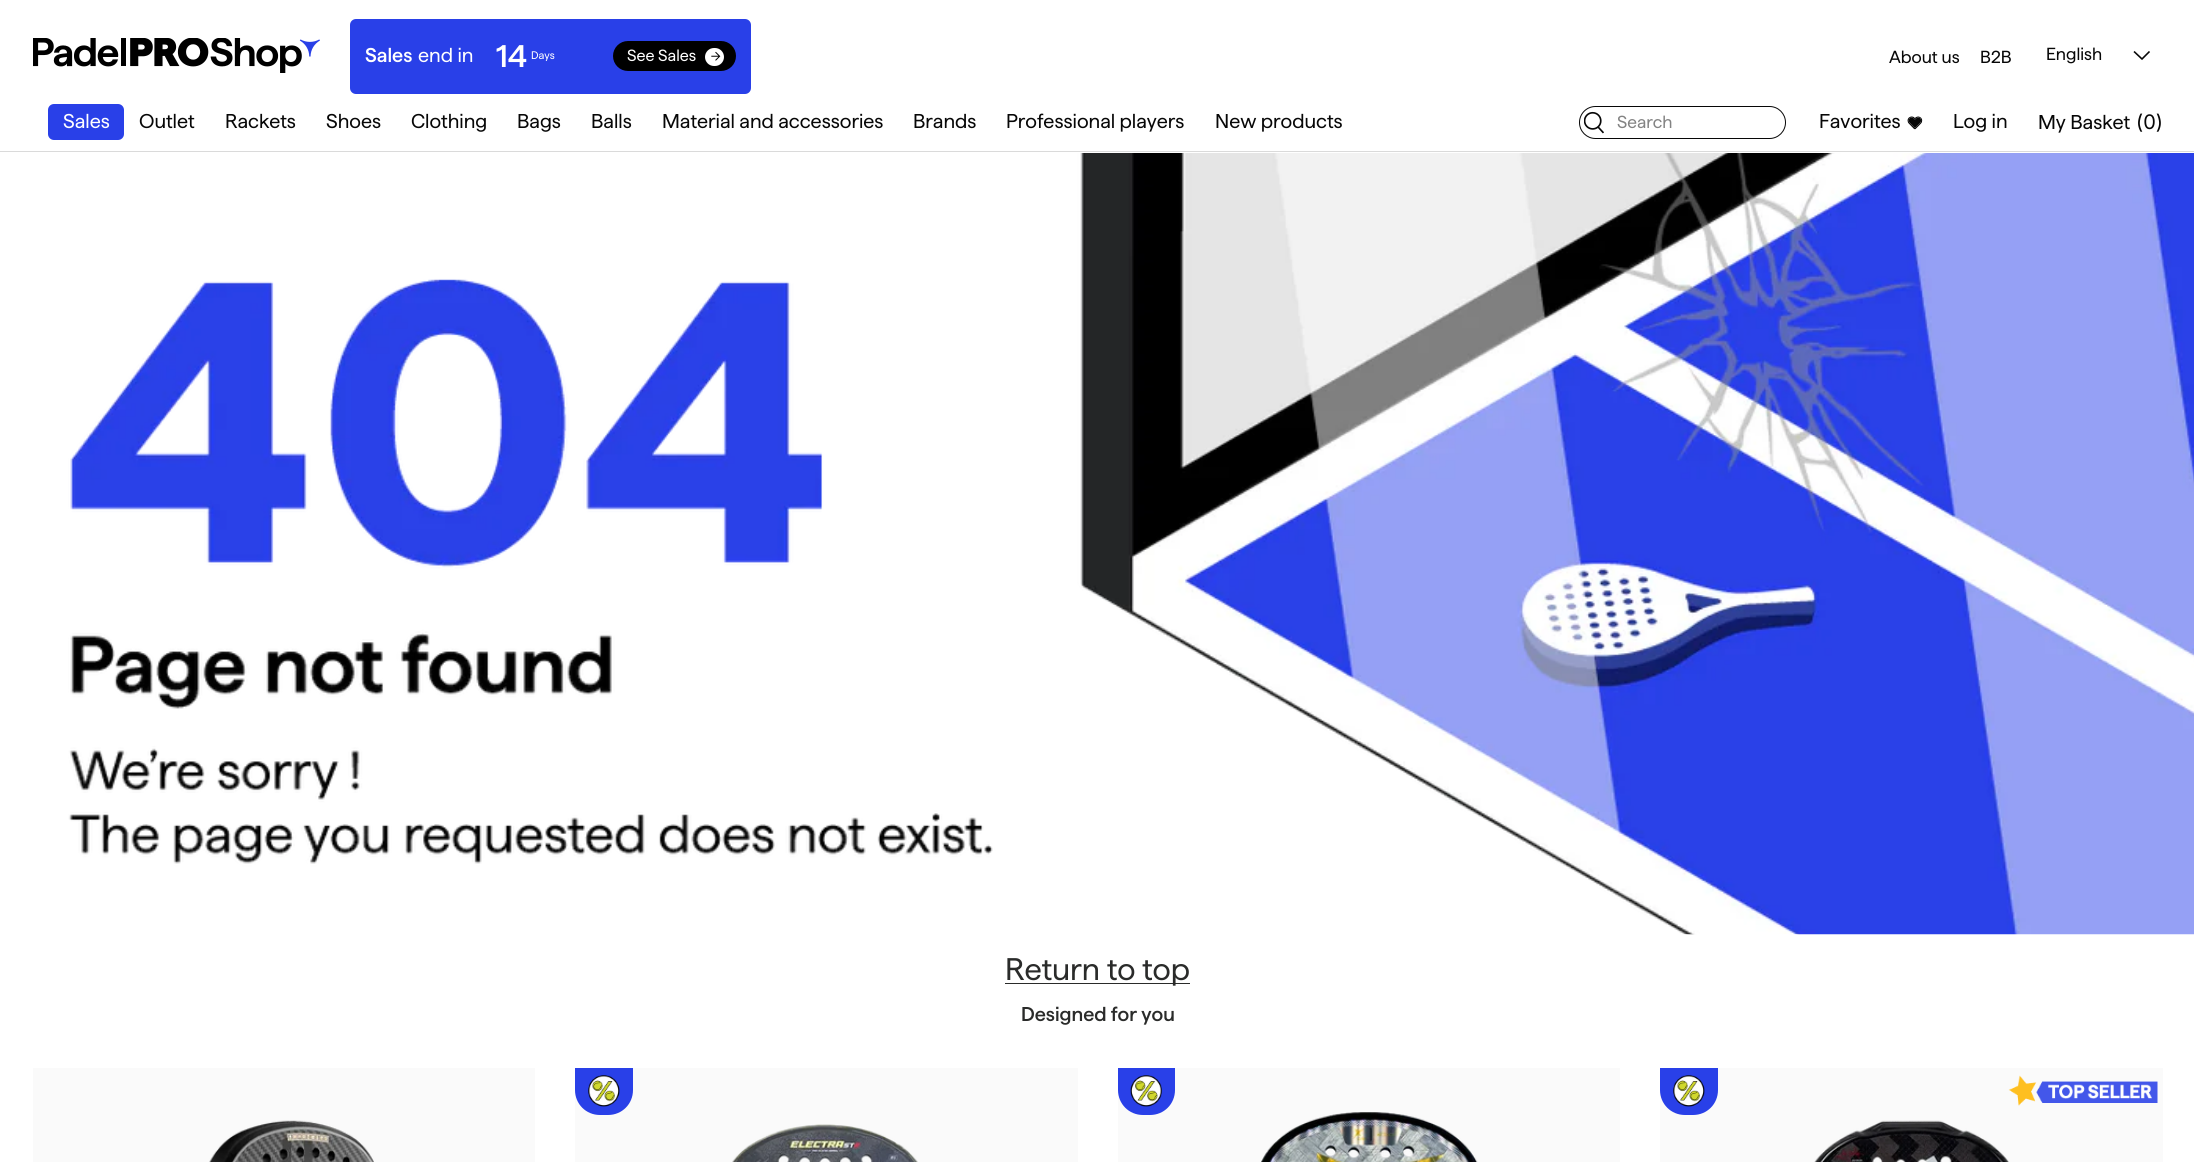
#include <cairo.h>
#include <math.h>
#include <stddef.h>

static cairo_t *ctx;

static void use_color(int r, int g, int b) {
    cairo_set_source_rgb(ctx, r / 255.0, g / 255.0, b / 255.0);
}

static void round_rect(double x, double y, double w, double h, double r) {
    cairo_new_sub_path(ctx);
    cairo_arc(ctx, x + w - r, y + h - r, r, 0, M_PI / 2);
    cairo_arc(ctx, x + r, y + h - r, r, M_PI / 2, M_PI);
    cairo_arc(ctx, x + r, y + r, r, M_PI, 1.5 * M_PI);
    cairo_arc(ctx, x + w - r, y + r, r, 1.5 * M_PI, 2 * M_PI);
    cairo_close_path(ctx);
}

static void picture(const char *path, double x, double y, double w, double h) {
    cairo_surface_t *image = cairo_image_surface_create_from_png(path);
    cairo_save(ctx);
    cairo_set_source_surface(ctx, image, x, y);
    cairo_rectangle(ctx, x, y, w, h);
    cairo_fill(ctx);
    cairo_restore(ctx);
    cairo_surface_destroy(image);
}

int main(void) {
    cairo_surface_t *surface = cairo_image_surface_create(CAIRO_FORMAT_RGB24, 2194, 1162);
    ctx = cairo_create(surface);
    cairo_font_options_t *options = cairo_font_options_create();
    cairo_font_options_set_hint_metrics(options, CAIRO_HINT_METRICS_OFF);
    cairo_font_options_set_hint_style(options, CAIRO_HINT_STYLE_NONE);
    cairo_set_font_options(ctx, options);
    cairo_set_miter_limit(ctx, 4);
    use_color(255, 255, 255);
    cairo_paint(ctx);
    use_color(218, 218, 218);
    cairo_rectangle(ctx, 0, 151, 2194, 1);
    cairo_fill(ctx);
    picture("img1.png", 33, 38, 287, 35);
    use_color(41, 64, 232);
    round_rect(350, 19, 401, 75, 6);
    cairo_fill(ctx);
    cairo_select_font_face(ctx, "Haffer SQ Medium", CAIRO_FONT_SLANT_NORMAL, CAIRO_FONT_WEIGHT_NORMAL);
    cairo_set_font_size(ctx, 20);
    use_color(255, 255, 255);
    cairo_move_to(ctx, 365, 62);
    cairo_show_text(ctx, "Sales");
    cairo_select_font_face(ctx, "Haffer SQ", CAIRO_FONT_SLANT_NORMAL, CAIRO_FONT_WEIGHT_NORMAL);
    cairo_move_to(ctx, 418, 62);
    cairo_show_text(ctx, "end in");
    cairo_select_font_face(ctx, "Haffer SQ Medium", CAIRO_FONT_SLANT_NORMAL, CAIRO_FONT_WEIGHT_NORMAL);
    cairo_set_font_size(ctx, 31.25);
    cairo_move_to(ctx, 496, 67);
    cairo_show_text(ctx, "14");
    cairo_select_font_face(ctx, "Haffer SQ", CAIRO_FONT_SLANT_NORMAL, CAIRO_FONT_WEIGHT_NORMAL);
    cairo_set_font_size(ctx, 11);
    cairo_move_to(ctx, 531, 59);
    cairo_show_text(ctx, "Days");
    use_color(0, 0, 0);
    round_rect(614.5, 42.5, 120, 27, 13.5);
    cairo_fill_preserve(ctx);
    cairo_set_line_width(ctx, 3);
    cairo_stroke(ctx);
    cairo_set_font_size(ctx, 16.25);
    use_color(255, 255, 255);
    cairo_move_to(ctx, 627, 61);
    cairo_show_text(ctx, "See Sales");
    round_rect(705, 48, 19, 18, 9);
    cairo_fill(ctx);
    picture("img2.png", 711, 51, 10, 10);
    cairo_set_font_size(ctx, 17.5);
    use_color(7, 7, 7);
    cairo_move_to(ctx, 1889, 63);
    cairo_show_text(ctx, "About us");
    cairo_move_to(ctx, 1980, 63);
    cairo_show_text(ctx, "B2B");
    cairo_move_to(ctx, 2046, 60);
    cairo_show_text(ctx, "English");
    cairo_new_path(ctx);
    cairo_move_to(ctx, 2149.5, 51.5);
    cairo_line_to(ctx, 2142, 59);
    cairo_line_to(ctx, 2134, 51.5);
    cairo_set_line_width(ctx, 1.6);
    cairo_stroke(ctx);
    use_color(41, 64, 232);
    round_rect(48, 104, 76, 36, 6);
    cairo_fill(ctx);
    cairo_set_font_size(ctx, 20);
    use_color(255, 255, 255);
    cairo_move_to(ctx, 63, 128);
    cairo_show_text(ctx, "Sales");
    use_color(7, 7, 7);
    cairo_move_to(ctx, 139, 128);
    cairo_show_text(ctx, "Outlet");
    cairo_move_to(ctx, 225, 128);
    cairo_show_text(ctx, "Rackets");
    cairo_move_to(ctx, 326, 128);
    cairo_show_text(ctx, "Shoes");
    cairo_move_to(ctx, 411, 128);
    cairo_show_text(ctx, "Clothing");
    cairo_move_to(ctx, 517, 128);
    cairo_show_text(ctx, "Bags");
    cairo_move_to(ctx, 591, 128);
    cairo_show_text(ctx, "Balls");
    cairo_move_to(ctx, 662, 128);
    cairo_show_text(ctx, "Material and accessories");
    cairo_move_to(ctx, 913, 128);
    cairo_show_text(ctx, "Brands");
    cairo_move_to(ctx, 1006, 128);
    cairo_show_text(ctx, "Professional players");
    cairo_move_to(ctx, 1215, 128);
    cairo_show_text(ctx, "New products");
    round_rect(1579.5, 106.5, 206, 32, 16);
    cairo_set_line_width(ctx, 1);
    cairo_stroke(ctx);
    picture("img3.png", 1584, 111, 20, 23);
    cairo_set_font_size(ctx, 17.5);
    use_color(131, 131, 131);
    cairo_move_to(ctx, 1617, 128);
    cairo_show_text(ctx, "Search");
    cairo_set_font_size(ctx, 20);
    use_color(7, 7, 7);
    cairo_move_to(ctx, 1819, 128);
    cairo_show_text(ctx, "Favorites");
    picture("img4.png", 1907, 116, 16, 14);
    cairo_move_to(ctx, 1953, 128);
    cairo_show_text(ctx, "Log in");
    cairo_move_to(ctx, 2038, 129);
    cairo_show_text(ctx, "My Basket");
    cairo_select_font_face(ctx, "Inter", CAIRO_FONT_SLANT_NORMAL, CAIRO_FONT_WEIGHT_NORMAL);
    cairo_move_to(ctx, 2136, 129);
    cairo_show_text(ctx, "(0)");
    picture("img5.png", 68, 153, 2126, 782);
    use_color(42, 43, 42);
    cairo_rectangle(ctx, 1005, 983, 185, 1);
    cairo_fill(ctx);
    cairo_select_font_face(ctx, "Haffer SQ", CAIRO_FONT_SLANT_NORMAL, CAIRO_FONT_WEIGHT_NORMAL);
    cairo_set_font_size(ctx, 31.25);
    cairo_move_to(ctx, 1005, 980);
    cairo_show_text(ctx, "Return to top");
    cairo_select_font_face(ctx, "Haffer SQ Medium", CAIRO_FONT_SLANT_NORMAL, CAIRO_FONT_WEIGHT_NORMAL);
    cairo_set_font_size(ctx, 20);
    cairo_move_to(ctx, 1021, 1021);
    cairo_show_text(ctx, "Designed for you");
    use_color(250, 250, 250);
    cairo_rectangle(ctx, 33, 1068, 502, 94);
    cairo_fill(ctx);
    picture("img6.png", 209, 1120, 165, 42);
    cairo_rectangle(ctx, 575, 1068, 503, 94);
    cairo_fill(ctx);
    use_color(41, 64, 232);
    cairo_new_path(ctx);
    cairo_move_to(ctx, 575, 1068);
    cairo_line_to(ctx, 633, 1068);
    cairo_line_to(ctx, 633, 1090);
    cairo_curve_to(ctx, 633, 1104, 622, 1115, 608, 1115);
    cairo_line_to(ctx, 600, 1115);
    cairo_curve_to(ctx, 586, 1115, 575, 1104, 575, 1090);
    cairo_close_path(ctx);
    cairo_fill(ctx);
    picture("img7.png", 588, 1075, 32, 32);
    picture("img8.png", 732, 1124, 186, 38);
    use_color(250, 250, 250);
    cairo_rectangle(ctx, 1118, 1068, 502, 94);
    cairo_fill(ctx);
    use_color(41, 64, 232);
    cairo_new_path(ctx);
    cairo_move_to(ctx, 1118, 1068);
    cairo_line_to(ctx, 1175, 1068);
    cairo_line_to(ctx, 1175, 1090);
    cairo_curve_to(ctx, 1175, 1104, 1164, 1115, 1150, 1115);
    cairo_line_to(ctx, 1143, 1115);
    cairo_curve_to(ctx, 1129, 1115, 1118, 1104, 1118, 1090);
    cairo_close_path(ctx);
    cairo_fill(ctx);
    picture("img9.png", 1130, 1075, 32, 32);
    picture("img10.png", 1261, 1112, 217, 50);
    use_color(250, 250, 250);
    cairo_rectangle(ctx, 1660, 1068, 503, 94);
    cairo_fill(ctx);
    use_color(41, 64, 232);
    cairo_new_path(ctx);
    cairo_move_to(ctx, 1660, 1068);
    cairo_line_to(ctx, 1718, 1068);
    cairo_line_to(ctx, 1718, 1090);
    cairo_curve_to(ctx, 1718, 1104, 1707, 1115, 1693, 1115);
    cairo_line_to(ctx, 1685, 1115);
    cairo_curve_to(ctx, 1671, 1115, 1660, 1104, 1660, 1090);
    cairo_close_path(ctx);
    cairo_fill(ctx);
    picture("img7.png", 1673, 1075, 32, 32);
    picture("img11.png", 2008, 1075, 150, 31);
    picture("img12.png", 1814, 1120, 195, 42);
    cairo_surface_write_to_png(surface, "result.png");
    cairo_font_options_destroy(options);
    cairo_destroy(ctx);
    cairo_surface_destroy(surface);
    return 0;
}
